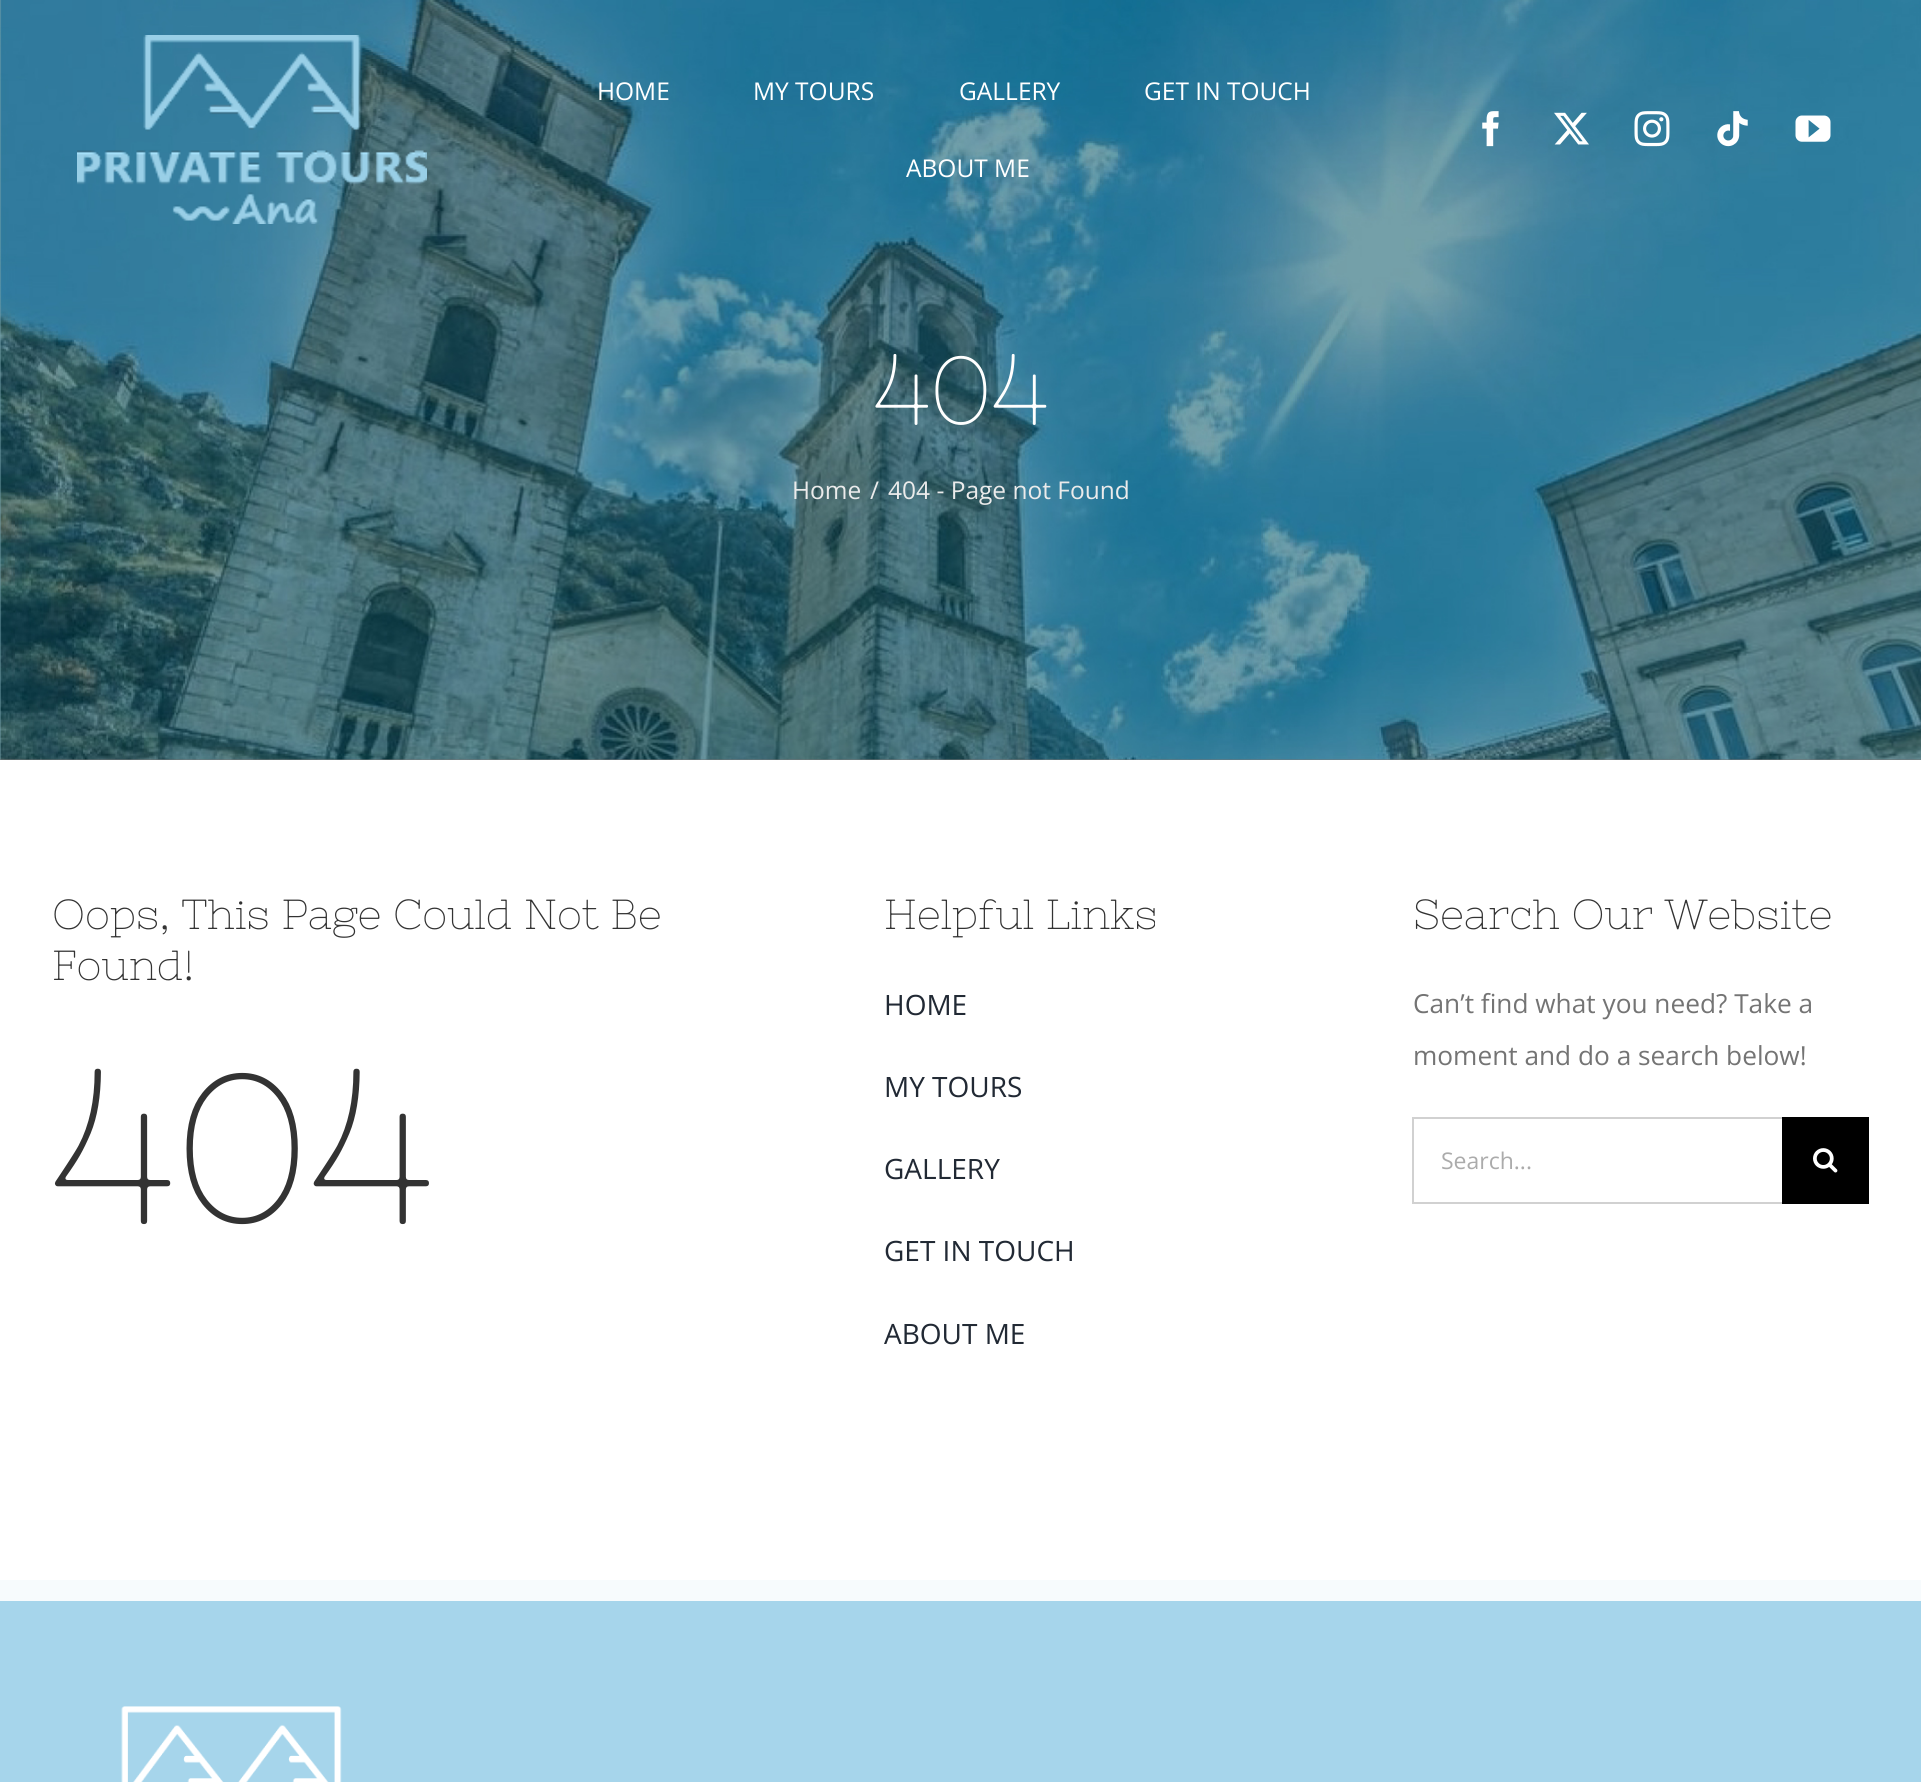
#include <cairo.h>
#include <math.h>
#include <stddef.h>

static cairo_t *ctx;

static void use_color(int r, int g, int b) {
    cairo_set_source_rgb(ctx, r / 255.0, g / 255.0, b / 255.0);
}

static void picture(const char *path, double x, double y, double w, double h) {
    cairo_surface_t *image = cairo_image_surface_create_from_png(path);
    cairo_save(ctx);
    cairo_set_source_surface(ctx, image, x, y);
    cairo_rectangle(ctx, x, y, w, h);
    cairo_fill(ctx);
    cairo_restore(ctx);
    cairo_surface_destroy(image);
}

int main(void) {
    cairo_surface_t *surface = cairo_image_surface_create(CAIRO_FORMAT_RGB24, 1921, 1782);
    ctx = cairo_create(surface);
    cairo_font_options_t *options = cairo_font_options_create();
    cairo_font_options_set_hint_metrics(options, CAIRO_HINT_METRICS_OFF);
    cairo_font_options_set_hint_style(options, CAIRO_HINT_STYLE_NONE);
    cairo_set_font_options(ctx, options);
    cairo_set_miter_limit(ctx, 4);
    use_color(255, 255, 255);
    cairo_paint(ctx);
    use_color(116, 116, 116);
    cairo_rectangle(ctx, 0, 759, 1921, 1);
    cairo_fill(ctx);
    picture("img7.png", 0, 0, 1921, 760);
    picture("img1.png", 77, 35, 350, 189);
    cairo_select_font_face(ctx, "Open Sans", CAIRO_FONT_SLANT_NORMAL, CAIRO_FONT_WEIGHT_NORMAL);
    cairo_set_font_size(ctx, 24.5);
    use_color(255, 255, 255);
    cairo_move_to(ctx, 597, 100);
    cairo_show_text(ctx, "HOME");
    cairo_move_to(ctx, 753, 100);
    cairo_show_text(ctx, "MY TOURS");
    cairo_move_to(ctx, 959, 100);
    cairo_show_text(ctx, "GALLERY");
    cairo_move_to(ctx, 1144, 100);
    cairo_show_text(ctx, "GET IN TOUCH");
    cairo_move_to(ctx, 906, 177);
    cairo_show_text(ctx, "ABOUT ME");
    picture("img2.png", 1482, 111, 17, 36);
    picture("img3.png", 1554, 112, 35, 33);
    picture("img4.png", 1634, 111, 36, 36);
    picture("img5.png", 1717, 111, 31, 36);
    picture("img6.png", 1795, 115, 36, 27);
    cairo_select_font_face(ctx, "Nixie One", CAIRO_FONT_SLANT_NORMAL, CAIRO_FONT_WEIGHT_NORMAL);
    cairo_set_font_size(ctx, 96);
    cairo_move_to(ctx, 874, 424);
    cairo_show_text(ctx, "404");
    cairo_select_font_face(ctx, "Open Sans", CAIRO_FONT_SLANT_NORMAL, CAIRO_FONT_WEIGHT_NORMAL);
    cairo_set_font_size(ctx, 24.5);
    use_color(235, 235, 235);
    cairo_move_to(ctx, 792, 499);
    cairo_show_text(ctx, "Home");
    cairo_move_to(ctx, 870, 499);
    cairo_show_text(ctx, "/");
    cairo_move_to(ctx, 888, 499);
    cairo_show_text(ctx, "404 - Page not Found");
    cairo_select_font_face(ctx, "Nixie One", CAIRO_FONT_SLANT_NORMAL, CAIRO_FONT_WEIGHT_NORMAL);
    cairo_set_font_size(ctx, 42);
    use_color(51, 51, 51);
    cairo_move_to(ctx, 52, 929);
    cairo_show_text(ctx, "Oops, This Page Could Not Be");
    cairo_move_to(ctx, 52, 980);
    cairo_show_text(ctx, "Found!");
    cairo_set_font_size(ctx, 210);
    cairo_move_to(ctx, 52, 1222);
    cairo_show_text(ctx, "404");
    cairo_set_font_size(ctx, 42);
    cairo_move_to(ctx, 884, 929);
    cairo_show_text(ctx, "Helpful Links");
    cairo_select_font_face(ctx, "Open Sans", CAIRO_FONT_SLANT_NORMAL, CAIRO_FONT_WEIGHT_NORMAL);
    cairo_set_font_size(ctx, 28);
    use_color(33, 41, 52);
    cairo_move_to(ctx, 884, 1015);
    cairo_show_text(ctx, "HOME");
    cairo_move_to(ctx, 884, 1097);
    cairo_show_text(ctx, "MY TOURS");
    cairo_move_to(ctx, 884, 1179);
    cairo_show_text(ctx, "GALLERY");
    cairo_move_to(ctx, 884, 1261);
    cairo_show_text(ctx, "GET IN TOUCH");
    cairo_move_to(ctx, 884, 1344);
    cairo_show_text(ctx, "ABOUT ME");
    cairo_select_font_face(ctx, "Nixie One", CAIRO_FONT_SLANT_NORMAL, CAIRO_FONT_WEIGHT_NORMAL);
    cairo_set_font_size(ctx, 42);
    use_color(51, 51, 51);
    cairo_move_to(ctx, 1413, 929);
    cairo_show_text(ctx, "Search Our Website");
    cairo_select_font_face(ctx, "Open Sans", CAIRO_FONT_SLANT_NORMAL, CAIRO_FONT_WEIGHT_NORMAL);
    cairo_set_font_size(ctx, 26.25);
    use_color(116, 116, 116);
    cairo_move_to(ctx, 1413, 1013);
    cairo_show_text(ctx, "Can’t find what you need? Take a");
    cairo_move_to(ctx, 1413, 1065);
    cairo_show_text(ctx, "moment and do a search below!");
    use_color(209, 209, 209);
    cairo_rectangle(ctx, 1412, 1117, 370, 2);
    cairo_fill(ctx);
    cairo_rectangle(ctx, 1412, 1202, 370, 2);
    cairo_fill(ctx);
    cairo_rectangle(ctx, 1412, 1117, 2, 87);
    cairo_fill(ctx);
    cairo_set_font_size(ctx, 23);
    use_color(171, 171, 171);
    cairo_move_to(ctx, 1441, 1169);
    cairo_show_text(ctx, "Search...");
    use_color(0, 0, 0);
    cairo_rectangle(ctx, 1782, 1117, 87, 87);
    cairo_fill(ctx);
    picture("img8.png", 1813, 1148, 25, 25);
    use_color(166, 213, 235);
    cairo_rectangle(ctx, 0, 1601, 1921, 181);
    cairo_fill(ctx);
    use_color(247, 251, 253);
    cairo_rectangle(ctx, 0, 1580, 1921, 21);
    cairo_fill(ctx);
    picture("img9.png", 121, 1706, 221, 76);
    cairo_surface_write_to_png(surface, "result.png");
    cairo_font_options_destroy(options);
    cairo_destroy(ctx);
    cairo_surface_destroy(surface);
    return 0;
}
